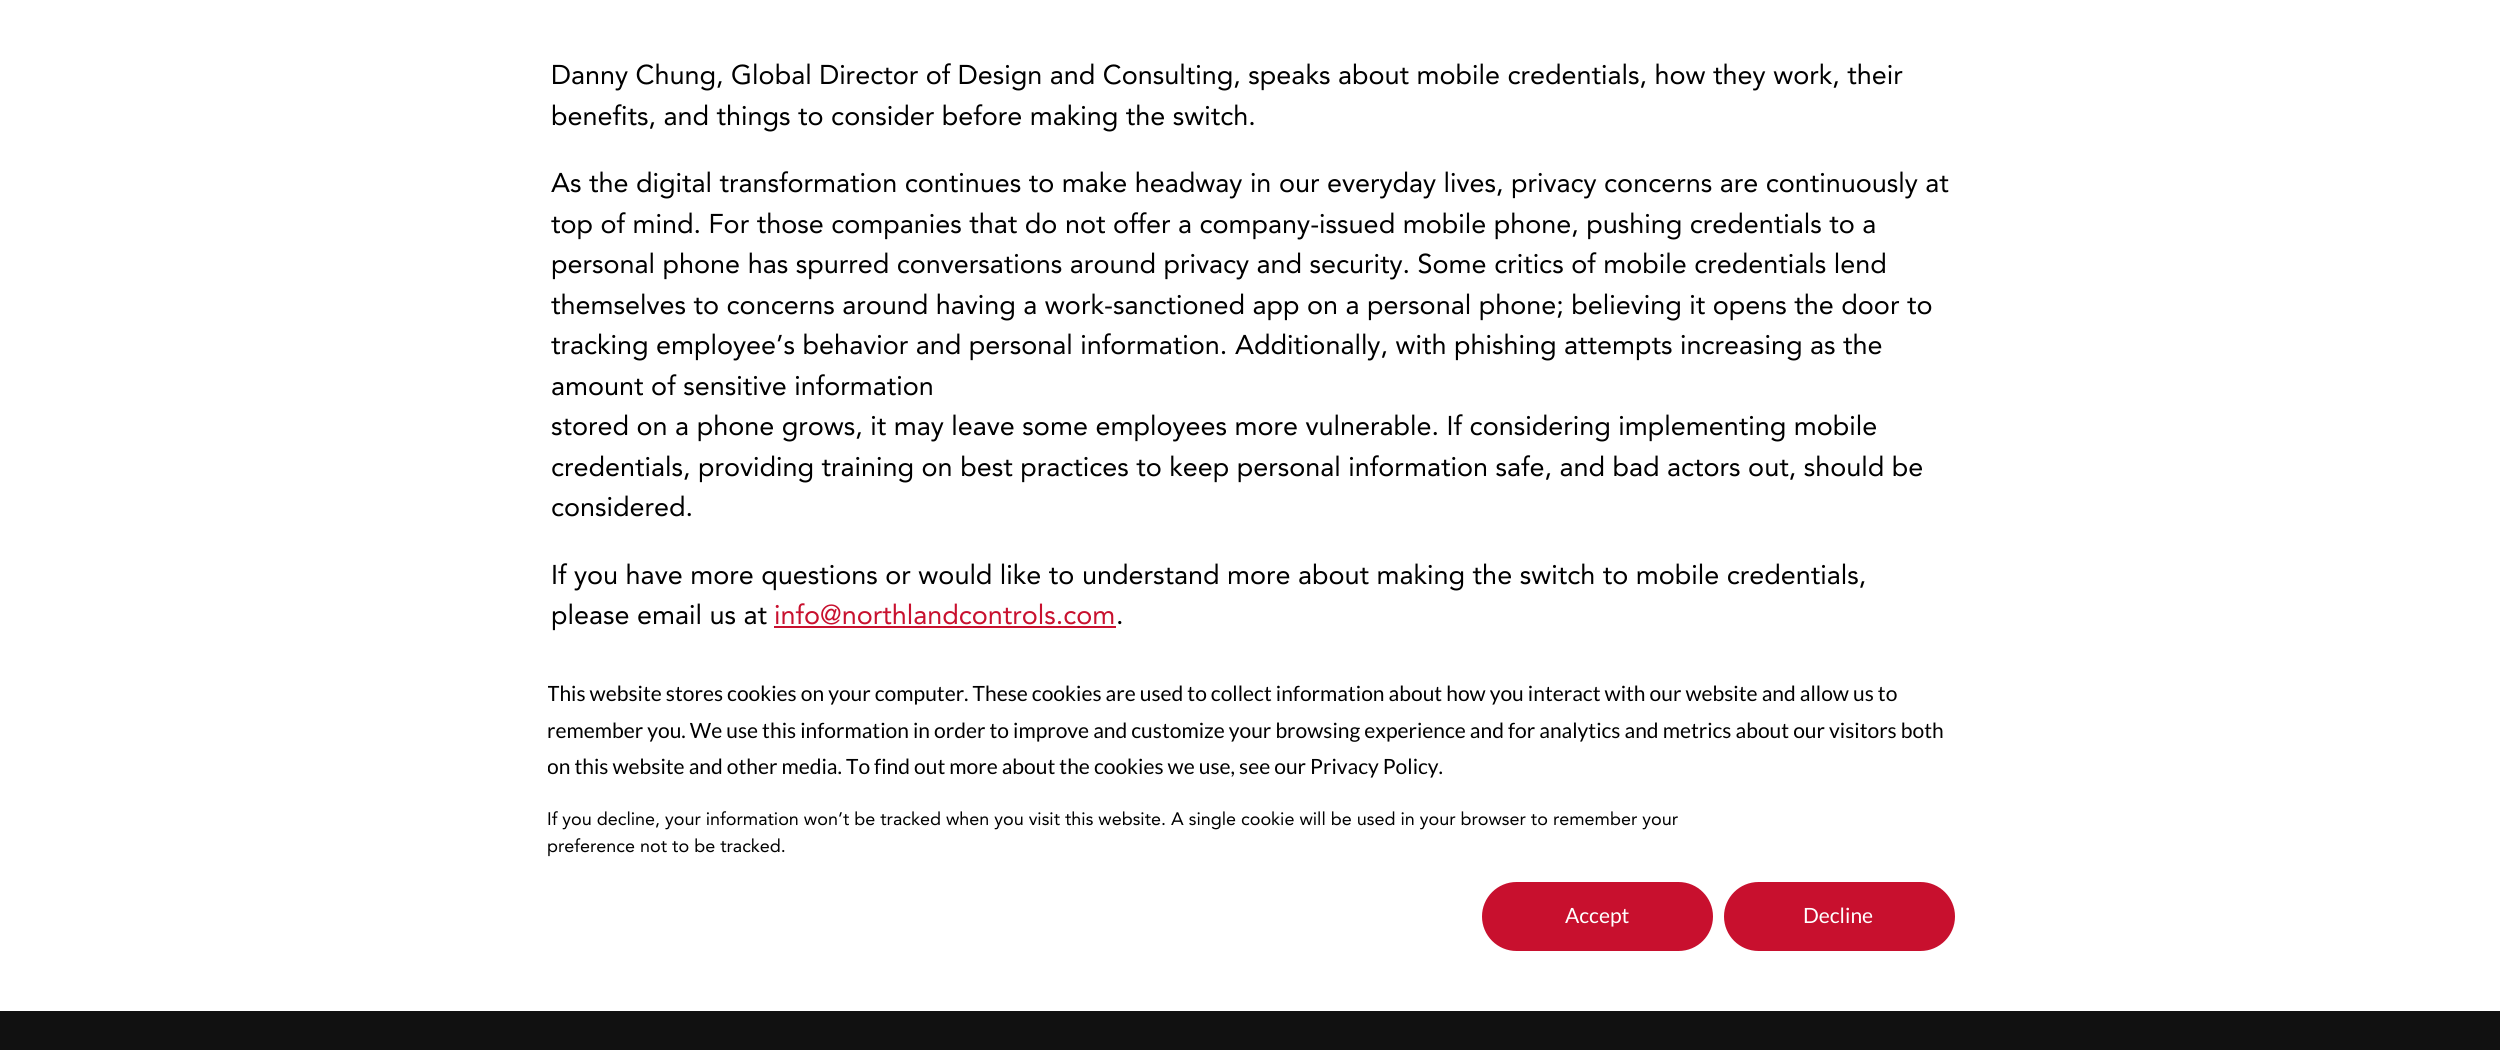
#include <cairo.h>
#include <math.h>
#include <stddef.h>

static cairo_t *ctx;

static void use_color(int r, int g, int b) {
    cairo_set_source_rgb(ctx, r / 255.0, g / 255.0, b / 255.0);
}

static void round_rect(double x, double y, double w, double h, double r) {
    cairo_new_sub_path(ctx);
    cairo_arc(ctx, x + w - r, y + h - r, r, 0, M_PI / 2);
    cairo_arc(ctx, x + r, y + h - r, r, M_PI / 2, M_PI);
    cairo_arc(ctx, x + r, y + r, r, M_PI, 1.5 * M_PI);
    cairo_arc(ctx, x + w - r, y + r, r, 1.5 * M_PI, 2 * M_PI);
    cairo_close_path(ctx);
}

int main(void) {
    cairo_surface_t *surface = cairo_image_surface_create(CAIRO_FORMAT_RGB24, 2500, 1050);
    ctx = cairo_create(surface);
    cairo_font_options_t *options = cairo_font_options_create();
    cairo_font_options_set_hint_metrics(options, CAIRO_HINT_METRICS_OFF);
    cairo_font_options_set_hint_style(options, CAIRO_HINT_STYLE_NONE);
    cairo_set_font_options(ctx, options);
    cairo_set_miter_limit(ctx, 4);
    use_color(17, 17, 17);
    cairo_paint(ctx);
    use_color(255, 255, 255);
    cairo_rectangle(ctx, 0, 0, 2500, 1011);
    cairo_fill(ctx);
    cairo_select_font_face(ctx, "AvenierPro", CAIRO_FONT_SLANT_NORMAL, CAIRO_FONT_WEIGHT_NORMAL);
    cairo_set_font_size(ctx, 27);
    use_color(0, 0, 0);
    cairo_move_to(ctx, 551, 84);
    cairo_show_text(ctx, "Danny Chung, Global Director of Design and Consulting, speaks about mobile credentials, how they work, their");
    cairo_move_to(ctx, 551, 125);
    cairo_show_text(ctx, "benefits, and things to consider before making the switch.");
    cairo_move_to(ctx, 551, 192);
    cairo_show_text(ctx, "As the digital transformation continues to make headway in our everyday lives, privacy concerns are continuously at");
    cairo_move_to(ctx, 551, 233);
    cairo_show_text(ctx, "top of mind. For those companies that do not offer a company-issued mobile phone, pushing credentials to a");
    cairo_move_to(ctx, 551, 273);
    cairo_show_text(ctx, "personal phone has spurred conversations around privacy and security. Some critics of mobile credentials lend");
    cairo_move_to(ctx, 551, 314);
    cairo_show_text(ctx, "themselves to concerns around having a work-sanctioned app on a personal phone; believing it opens the door to");
    cairo_move_to(ctx, 551, 354);
    cairo_show_text(ctx, "tracking employee’s behavior and personal information. Additionally, with phishing attempts increasing as the");
    cairo_move_to(ctx, 551, 395);
    cairo_show_text(ctx, "amount of sensitive information");
    cairo_move_to(ctx, 551, 435);
    cairo_show_text(ctx, "stored on a phone grows, it may leave some employees more vulnerable. If considering implementing mobile");
    cairo_move_to(ctx, 551, 476);
    cairo_show_text(ctx, "credentials, providing training on best practices to keep personal information safe, and bad actors out, should be");
    cairo_move_to(ctx, 551, 516);
    cairo_show_text(ctx, "considered.");
    cairo_move_to(ctx, 551, 584);
    cairo_show_text(ctx, "If you have more questions or would like to understand more about making the switch to mobile credentials,");
    cairo_move_to(ctx, 551, 624);
    cairo_show_text(ctx, "please email us at");
    use_color(200, 16, 46);
    cairo_move_to(ctx, 774, 624);
    cairo_show_text(ctx, "info@northlandcontrols.com");
    cairo_rectangle(ctx, 774, 626, 342, 2);
    cairo_fill(ctx);
    use_color(0, 0, 0);
    cairo_move_to(ctx, 1116, 624);
    cairo_show_text(ctx, ".");
    cairo_save(ctx);
    round_rect(548, 645, 1407, 357, 18);
    cairo_clip(ctx);
    cairo_select_font_face(ctx, "Lato", CAIRO_FONT_SLANT_NORMAL, CAIRO_FONT_WEIGHT_NORMAL);
    cairo_set_font_size(ctx, 21);
    cairo_move_to(ctx, 547, 701);
    cairo_show_text(ctx, "This website stores cookies on your computer. These cookies are used to collect information about how you interact with our website and allow us to");
    cairo_restore(ctx);
    cairo_select_font_face(ctx, "Lato", CAIRO_FONT_SLANT_NORMAL, CAIRO_FONT_WEIGHT_NORMAL);
    cairo_set_font_size(ctx, 21);
    cairo_move_to(ctx, 547, 738);
    cairo_show_text(ctx, "remember you. We use this information in order to improve and customize your browsing experience and for analytics and metrics about our visitors both");
    cairo_save(ctx);
    round_rect(548, 645, 1407, 357, 18);
    cairo_clip(ctx);
    cairo_move_to(ctx, 547, 774);
    cairo_show_text(ctx, "on this website and other media. To find out more about the cookies we use, see our Privacy Policy.");
    cairo_restore(ctx);
    cairo_select_font_face(ctx, "AvenierPro", CAIRO_FONT_SLANT_NORMAL, CAIRO_FONT_WEIGHT_NORMAL);
    cairo_set_font_size(ctx, 18);
    cairo_move_to(ctx, 547, 825);
    cairo_show_text(ctx, "If you decline, your information won’t be tracked when you visit this website. A single cookie will be used in your browser to remember your");
    cairo_move_to(ctx, 547, 852);
    cairo_show_text(ctx, "preference not to be tracked.");
    use_color(200, 16, 46);
    round_rect(1483, 883, 229, 67, 33.5);
    cairo_fill_preserve(ctx);
    cairo_stroke(ctx);
    cairo_select_font_face(ctx, "Lato", CAIRO_FONT_SLANT_NORMAL, CAIRO_FONT_WEIGHT_NORMAL);
    cairo_set_font_size(ctx, 21);
    use_color(255, 255, 255);
    cairo_move_to(ctx, 1565, 923);
    cairo_show_text(ctx, "Accept");
    use_color(200, 16, 46);
    round_rect(1725, 883, 229, 67, 33.5);
    cairo_fill_preserve(ctx);
    cairo_stroke(ctx);
    use_color(255, 255, 255);
    cairo_move_to(ctx, 1803, 923);
    cairo_show_text(ctx, "Decline");
    cairo_surface_write_to_png(surface, "result.png");
    cairo_font_options_destroy(options);
    cairo_destroy(ctx);
    cairo_surface_destroy(surface);
    return 0;
}
